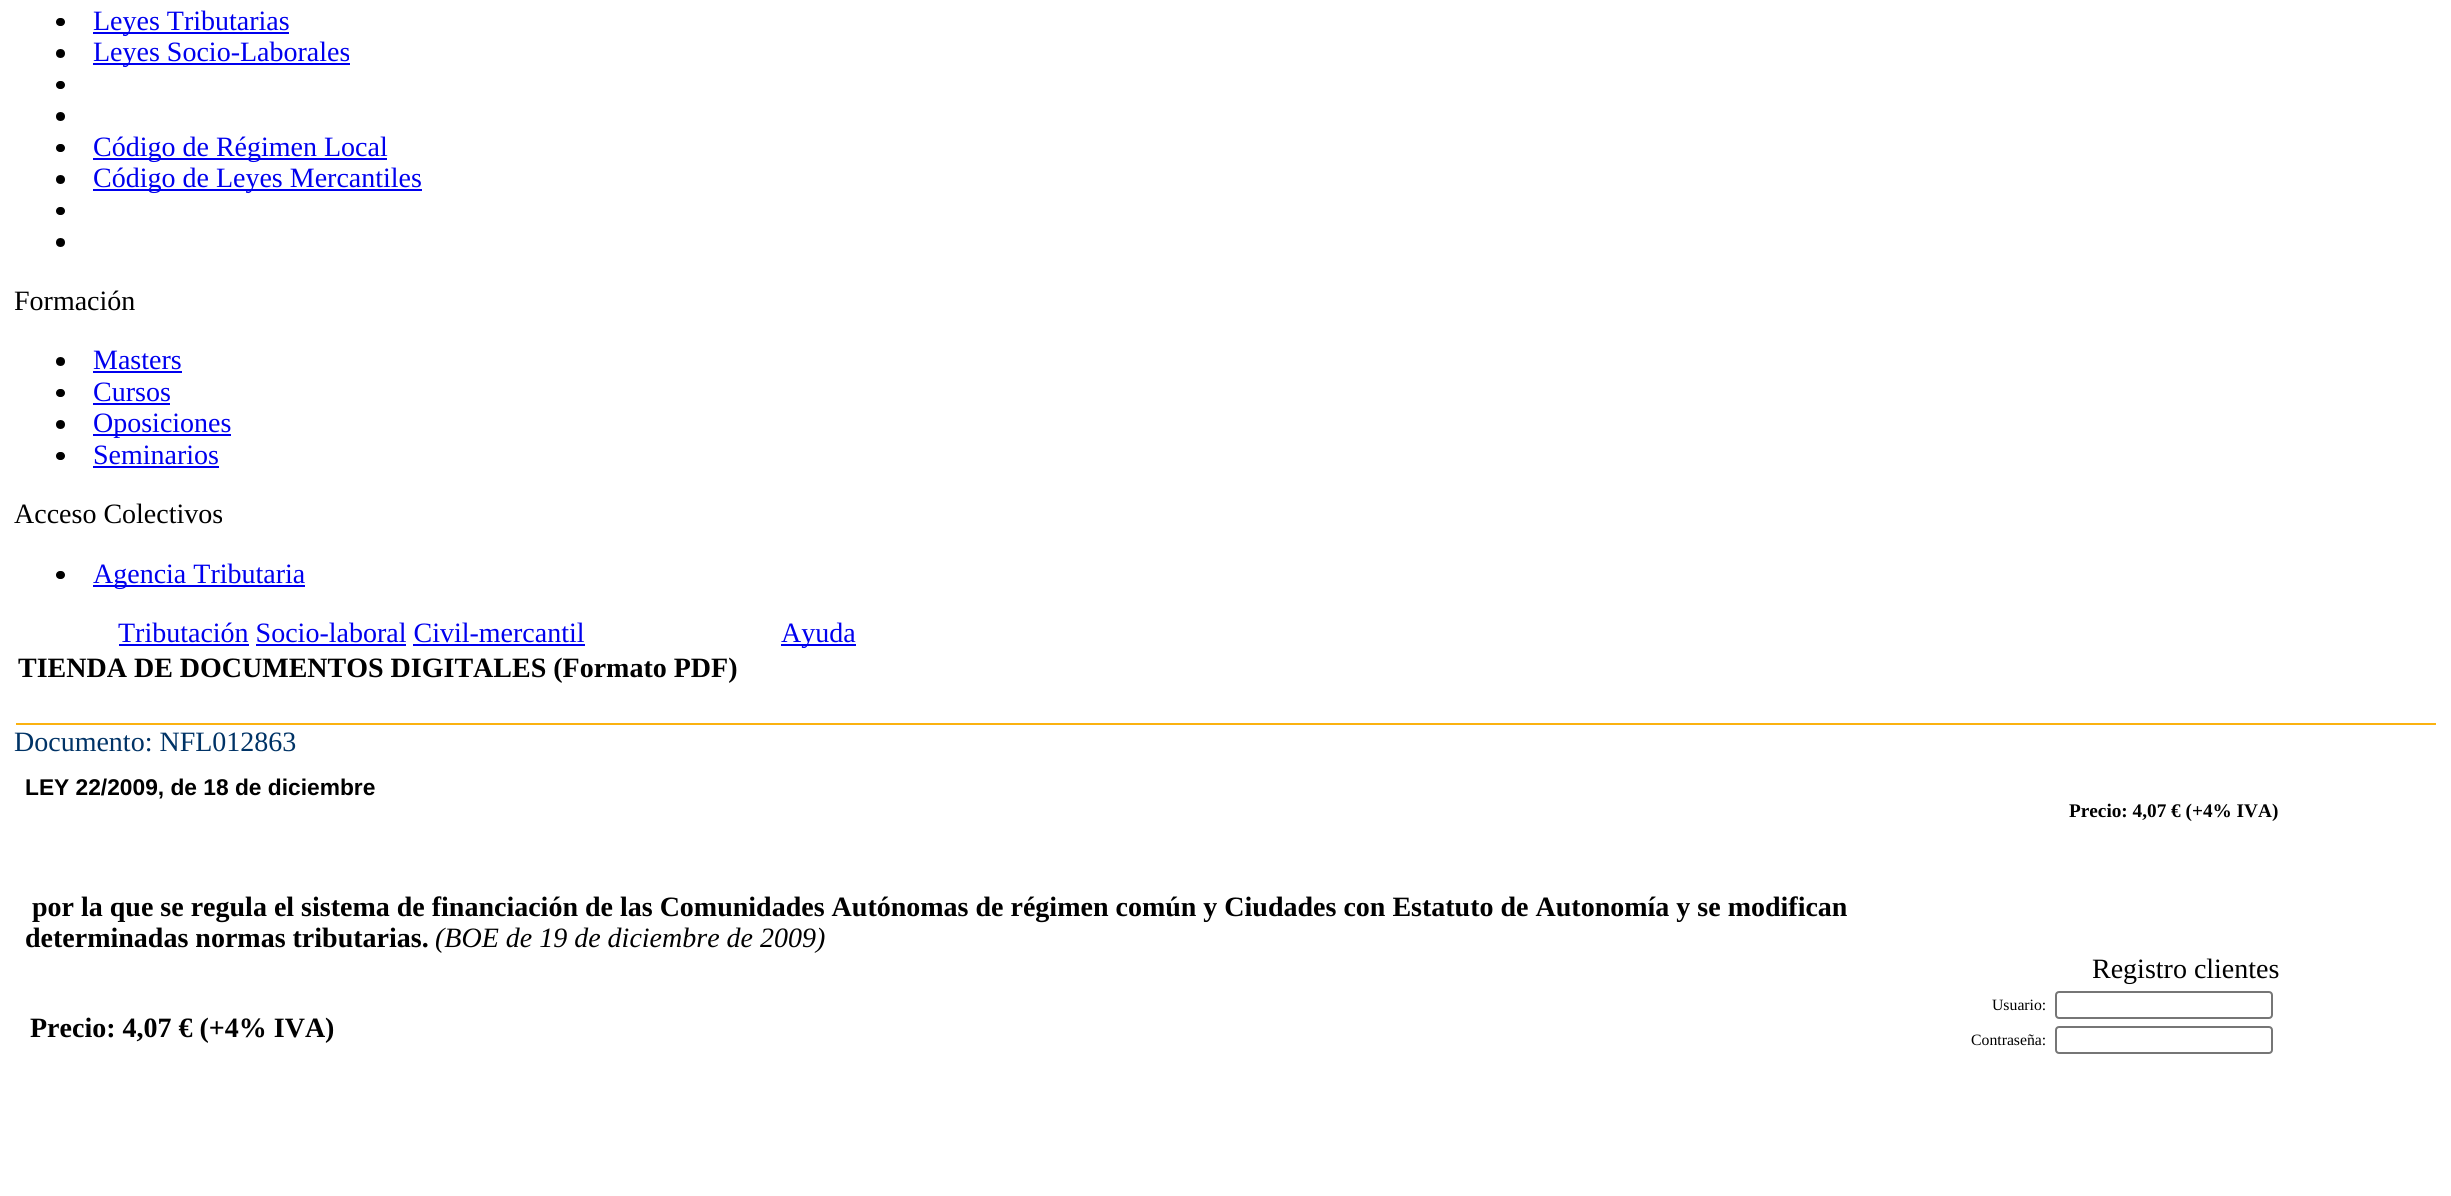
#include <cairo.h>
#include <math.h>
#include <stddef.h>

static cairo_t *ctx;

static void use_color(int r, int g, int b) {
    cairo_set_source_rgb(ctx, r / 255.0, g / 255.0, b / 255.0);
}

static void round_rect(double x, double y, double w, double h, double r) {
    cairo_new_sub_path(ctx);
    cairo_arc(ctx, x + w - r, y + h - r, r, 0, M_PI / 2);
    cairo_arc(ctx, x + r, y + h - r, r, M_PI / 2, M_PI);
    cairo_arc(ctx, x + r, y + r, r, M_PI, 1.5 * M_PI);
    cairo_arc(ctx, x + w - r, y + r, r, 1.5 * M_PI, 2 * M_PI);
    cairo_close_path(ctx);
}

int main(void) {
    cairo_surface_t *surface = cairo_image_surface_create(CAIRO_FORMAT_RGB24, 2451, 1196);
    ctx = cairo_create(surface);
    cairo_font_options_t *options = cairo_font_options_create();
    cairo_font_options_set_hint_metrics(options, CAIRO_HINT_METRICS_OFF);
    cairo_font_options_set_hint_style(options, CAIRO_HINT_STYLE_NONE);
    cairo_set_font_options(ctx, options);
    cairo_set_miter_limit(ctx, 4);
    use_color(255, 255, 255);
    cairo_paint(ctx);
    use_color(0, 0, 0);
    round_rect(56, 18, 9, 8, 4);
    cairo_fill(ctx);
    use_color(0, 0, 238);
    cairo_rectangle(ctx, 93, 32, 196, 2);
    cairo_fill(ctx);
    cairo_select_font_face(ctx, "Liberation Serif", CAIRO_FONT_SLANT_NORMAL, CAIRO_FONT_WEIGHT_NORMAL);
    cairo_set_font_size(ctx, 28);
    cairo_move_to(ctx, 93, 30);
    cairo_show_text(ctx, "Leyes Tributarias");
    use_color(0, 0, 0);
    cairo_new_path(ctx);
    cairo_arc(ctx, 60.5, 53.5, 4.5, 0, 2 * M_PI);
    cairo_fill(ctx);
    use_color(0, 0, 238);
    cairo_rectangle(ctx, 93, 63, 257, 2);
    cairo_fill(ctx);
    cairo_move_to(ctx, 93, 61);
    cairo_show_text(ctx, "Leyes Socio-Laborales");
    use_color(0, 0, 0);
    round_rect(56, 81, 9, 8, 4);
    cairo_fill(ctx);
    cairo_arc(ctx, 60.5, 116.5, 4.5, 0, 2 * M_PI);
    cairo_fill(ctx);
    round_rect(56, 144, 9, 8, 4);
    cairo_fill(ctx);
    use_color(0, 0, 238);
    cairo_rectangle(ctx, 93, 158, 294, 2);
    cairo_fill(ctx);
    cairo_move_to(ctx, 93, 156);
    cairo_show_text(ctx, "Código de Régimen Local");
    use_color(0, 0, 0);
    cairo_new_path(ctx);
    cairo_arc(ctx, 60.5, 179.5, 4.5, 0, 2 * M_PI);
    cairo_fill(ctx);
    use_color(0, 0, 238);
    cairo_rectangle(ctx, 93, 189, 329, 2);
    cairo_fill(ctx);
    cairo_move_to(ctx, 93, 187);
    cairo_show_text(ctx, "Código de Leyes Mercantiles");
    use_color(0, 0, 0);
    round_rect(56, 207, 9, 8, 4);
    cairo_fill(ctx);
    cairo_arc(ctx, 60.5, 242.5, 4.5, 0, 2 * M_PI);
    cairo_fill(ctx);
    cairo_move_to(ctx, 14, 310);
    cairo_show_text(ctx, "Formación");
    cairo_new_path(ctx);
    cairo_arc(ctx, 60.5, 361.5, 4.5, 0, 2 * M_PI);
    cairo_fill(ctx);
    use_color(0, 0, 238);
    cairo_move_to(ctx, 93, 369);
    cairo_show_text(ctx, "Masters");
    cairo_rectangle(ctx, 93, 371, 89, 2);
    cairo_fill(ctx);
    use_color(0, 0, 0);
    round_rect(56, 389, 9, 8, 4);
    cairo_fill(ctx);
    use_color(0, 0, 238);
    cairo_move_to(ctx, 93, 401);
    cairo_show_text(ctx, "Cursos");
    cairo_rectangle(ctx, 93, 403, 77, 2);
    cairo_fill(ctx);
    use_color(0, 0, 0);
    cairo_arc(ctx, 60.5, 424.5, 4.5, 0, 2 * M_PI);
    cairo_fill(ctx);
    use_color(0, 0, 238);
    cairo_rectangle(ctx, 93, 434, 138, 2);
    cairo_fill(ctx);
    cairo_move_to(ctx, 93, 432);
    cairo_show_text(ctx, "Oposiciones");
    use_color(0, 0, 0);
    round_rect(56, 452, 9, 8, 4);
    cairo_fill(ctx);
    use_color(0, 0, 238);
    cairo_move_to(ctx, 93, 464);
    cairo_show_text(ctx, "Seminarios");
    cairo_rectangle(ctx, 93, 466, 126, 2);
    cairo_fill(ctx);
    use_color(0, 0, 0);
    cairo_move_to(ctx, 14, 523);
    cairo_show_text(ctx, "Acceso Colectivos");
    round_rect(56, 571, 9, 8, 4);
    cairo_fill(ctx);
    use_color(0, 0, 238);
    cairo_rectangle(ctx, 93, 585, 212, 2);
    cairo_fill(ctx);
    cairo_move_to(ctx, 93, 583);
    cairo_show_text(ctx, "Agencia Tributaria");
    cairo_move_to(ctx, 118, 642);
    cairo_show_text(ctx, "Tributación Socio-laboral Civil-mercantil");
    cairo_rectangle(ctx, 119, 644, 130, 2);
    cairo_fill(ctx);
    cairo_rectangle(ctx, 781, 644, 75, 2);
    cairo_fill(ctx);
    cairo_move_to(ctx, 781, 642);
    cairo_show_text(ctx, "Ayuda");
    cairo_rectangle(ctx, 256, 644, 150, 2);
    cairo_fill(ctx);
    cairo_rectangle(ctx, 413, 644, 172, 2);
    cairo_fill(ctx);
    cairo_select_font_face(ctx, "Liberation Serif", CAIRO_FONT_SLANT_NORMAL, CAIRO_FONT_WEIGHT_BOLD);
    use_color(0, 0, 0);
    cairo_move_to(ctx, 18, 677);
    cairo_show_text(ctx, "TIENDA DE DOCUMENTOS DIGITALES (Formato PDF)");
    use_color(251, 178, 16);
    cairo_rectangle(ctx, 16, 723, 2420, 2);
    cairo_fill(ctx);
    cairo_select_font_face(ctx, "Liberation Serif", CAIRO_FONT_SLANT_NORMAL, CAIRO_FONT_WEIGHT_NORMAL);
    use_color(0, 51, 102);
    cairo_move_to(ctx, 14, 751);
    cairo_show_text(ctx, "Documento: NFL012863");
    cairo_select_font_face(ctx, "Liberation Sans", CAIRO_FONT_SLANT_NORMAL, CAIRO_FONT_WEIGHT_BOLD);
    cairo_set_font_size(ctx, 22.75);
    use_color(0, 0, 0);
    cairo_move_to(ctx, 25, 795);
    cairo_show_text(ctx, "LEY 22/2009, de 18 de diciembre");
    cairo_select_font_face(ctx, "Liberation Serif", CAIRO_FONT_SLANT_NORMAL, CAIRO_FONT_WEIGHT_BOLD);
    cairo_set_font_size(ctx, 19.25);
    cairo_move_to(ctx, 2069, 817);
    cairo_show_text(ctx, "Precio: 4,07 € (+4% IVA)");
    cairo_select_font_face(ctx, "Liberation Serif", CAIRO_FONT_SLANT_NORMAL, CAIRO_FONT_WEIGHT_NORMAL);
    cairo_set_font_size(ctx, 28);
    cairo_move_to(ctx, 2092, 978);
    cairo_show_text(ctx, "Registro clientes");
    cairo_set_font_size(ctx, 15.75);
    cairo_move_to(ctx, 1992, 1010);
    cairo_show_text(ctx, "Usuario:");
    round_rect(2056, 992, 216, 26, 3);
    use_color(118, 118, 118);
    cairo_stroke(ctx);
    use_color(0, 0, 0);
    cairo_move_to(ctx, 1971, 1045);
    cairo_show_text(ctx, "Contraseña:");
    round_rect(2056, 1027, 216, 26, 3);
    use_color(118, 118, 118);
    cairo_stroke(ctx);
    cairo_select_font_face(ctx, "Liberation Serif", CAIRO_FONT_SLANT_NORMAL, CAIRO_FONT_WEIGHT_BOLD);
    cairo_set_font_size(ctx, 28);
    use_color(0, 0, 0);
    cairo_move_to(ctx, 32, 916);
    cairo_show_text(ctx, "por la que se regula el sistema de financiación de las Comunidades Autónomas de régimen común y Ciudades con Estatuto de Autonomía y se modifican");
    cairo_move_to(ctx, 25, 947);
    cairo_show_text(ctx, "determinadas normas tributarias.");
    cairo_select_font_face(ctx, "Liberation Serif", CAIRO_FONT_SLANT_ITALIC, CAIRO_FONT_WEIGHT_NORMAL);
    cairo_move_to(ctx, 435, 947);
    cairo_show_text(ctx, "(BOE de 19 de diciembre de 2009)");
    cairo_select_font_face(ctx, "Liberation Serif", CAIRO_FONT_SLANT_NORMAL, CAIRO_FONT_WEIGHT_BOLD);
    cairo_move_to(ctx, 30, 1037);
    cairo_show_text(ctx, "Precio: 4,07 € (+4% IVA)");
    cairo_surface_write_to_png(surface, "result.png");
    cairo_font_options_destroy(options);
    cairo_destroy(ctx);
    cairo_surface_destroy(surface);
    return 0;
}
